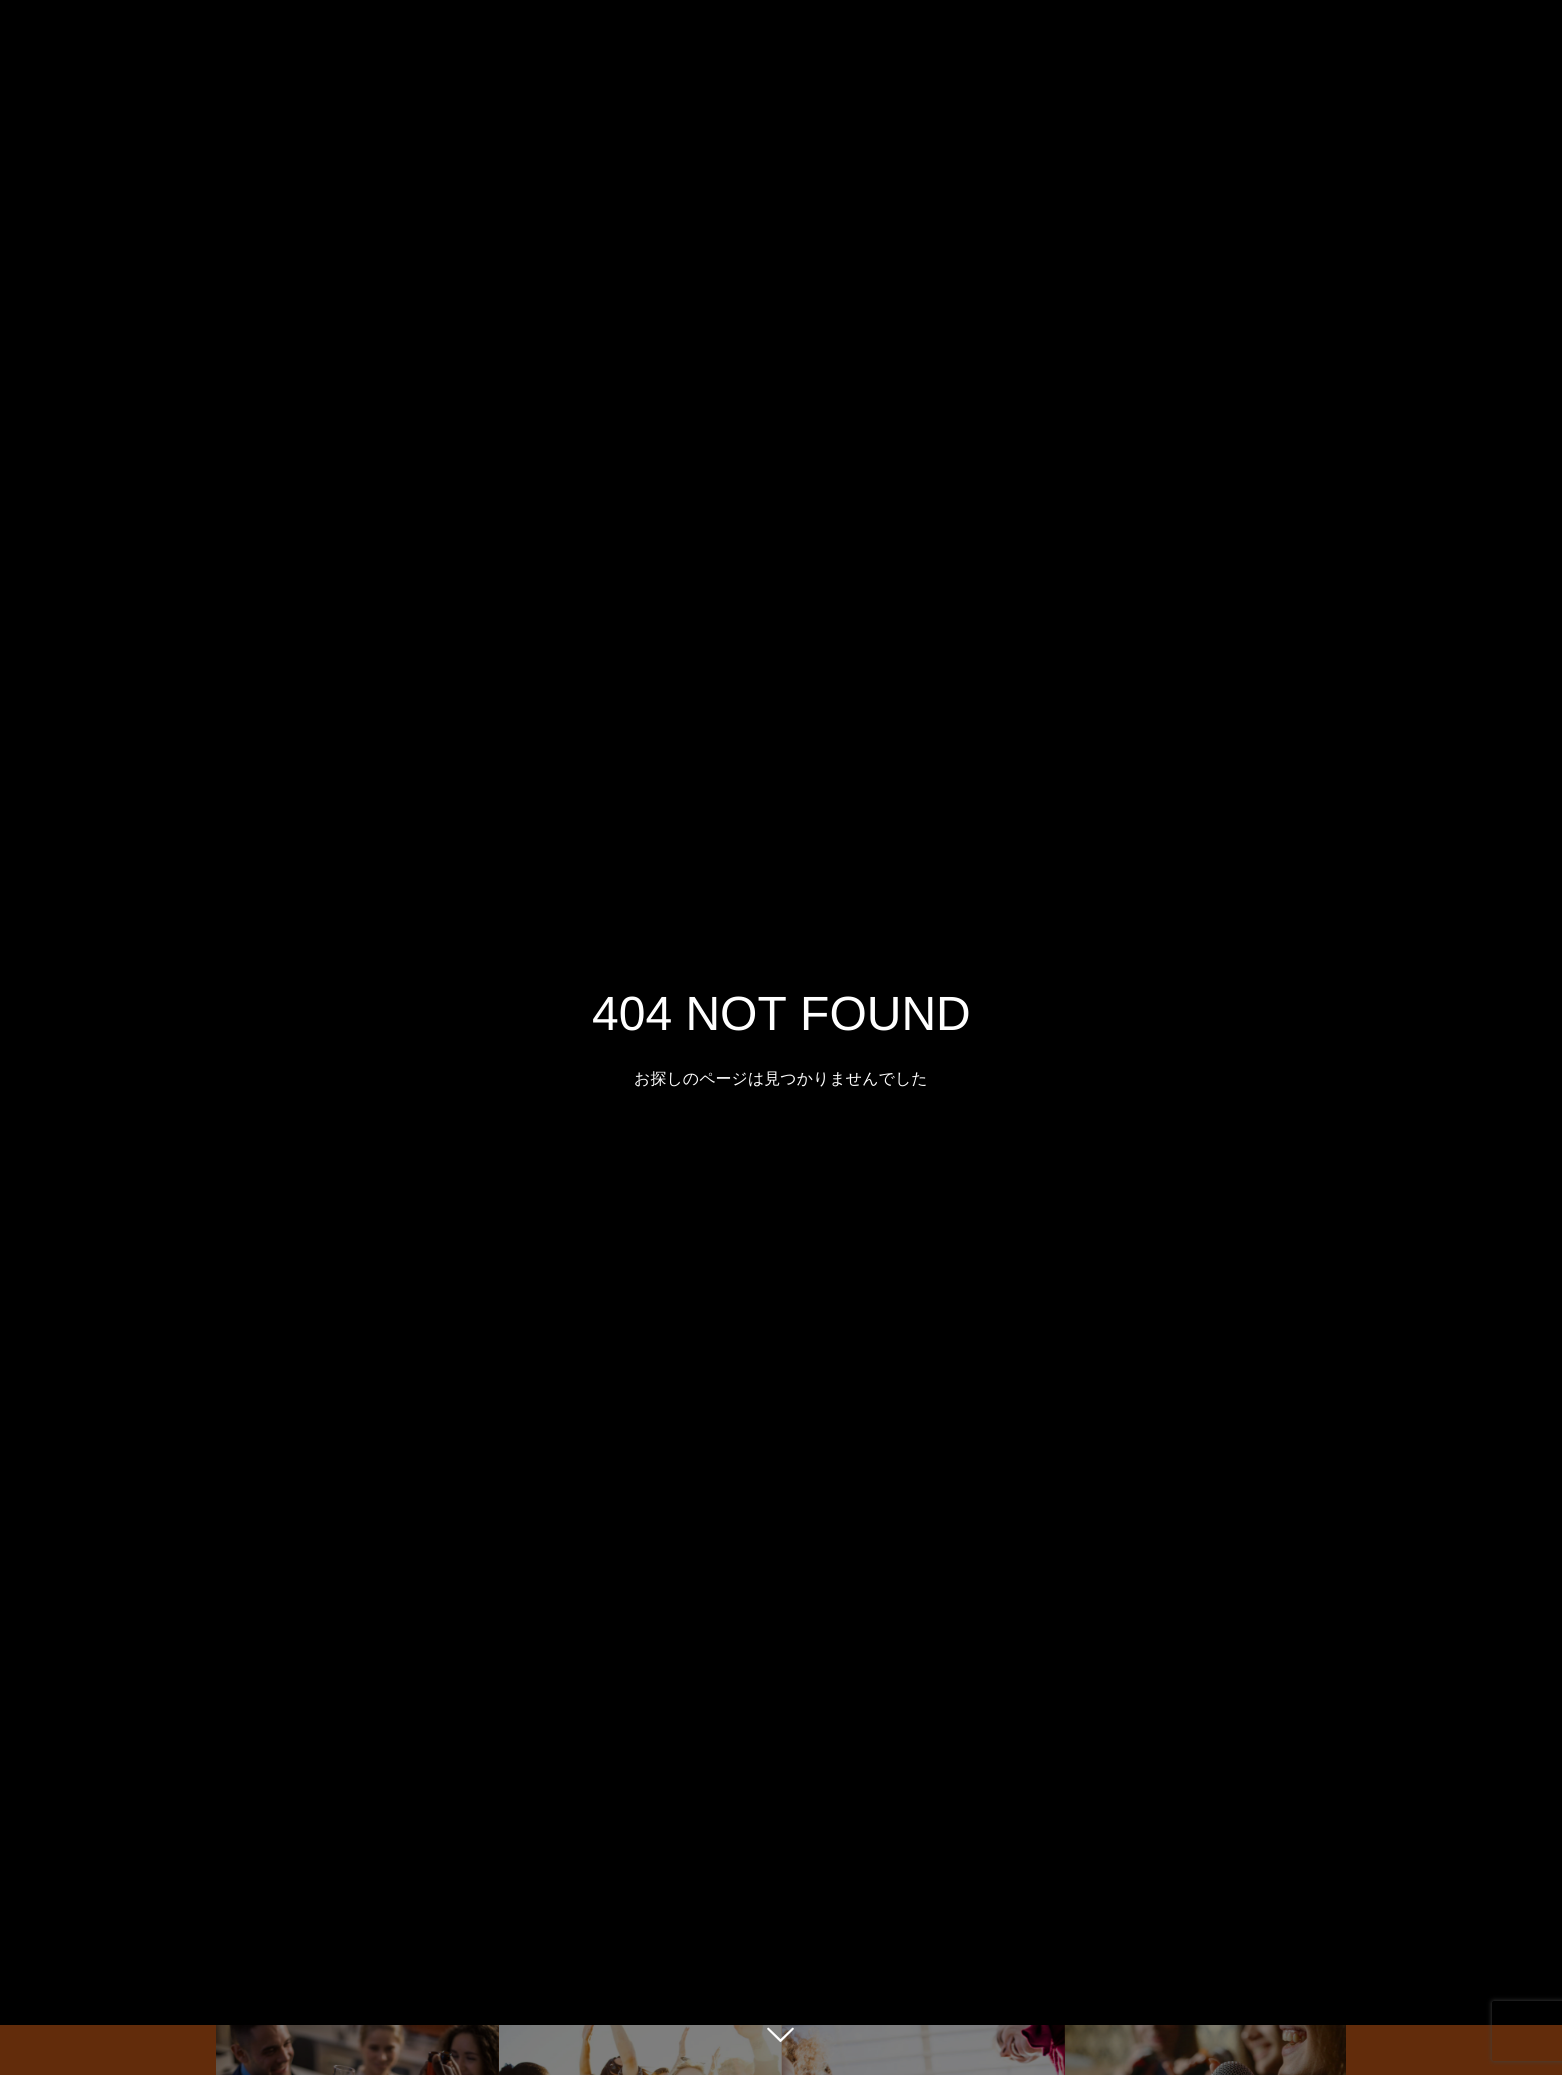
#include <cairo.h>
#include <math.h>
#include <stddef.h>

static cairo_t *ctx;

static void use_color(int r, int g, int b) {
    cairo_set_source_rgb(ctx, r / 255.0, g / 255.0, b / 255.0);
}

static void round_rect(double x, double y, double w, double h, double r) {
    cairo_new_sub_path(ctx);
    cairo_arc(ctx, x + w - r, y + h - r, r, 0, M_PI / 2);
    cairo_arc(ctx, x + r, y + h - r, r, M_PI / 2, M_PI);
    cairo_arc(ctx, x + r, y + r, r, M_PI, 1.5 * M_PI);
    cairo_arc(ctx, x + w - r, y + r, r, 1.5 * M_PI, 2 * M_PI);
    cairo_close_path(ctx);
}

static void shadow(double x, double y, double w, double h, double r, double blur, double alpha) {
    cairo_push_group_with_content(ctx, CAIRO_CONTENT_ALPHA);
    cairo_set_operator(ctx, CAIRO_OPERATOR_SOURCE);
    for (int i = 15; i >= -15 && fmin(w, h) + blur * i / 3 > 0; i -= 2) {
        double e = blur * i / 6;
        cairo_set_source_rgba(ctx, 0, 0, 0, alpha * erfc((i - 1) / 8.5) / 2);
        round_rect(x - e, y - e, w + 2 * e, h + 2 * e, fmax(0, fmin(r + e + blur * .6, fmin(w, h) / 2 + e)));
        cairo_fill(ctx);
    }
    cairo_pattern_t *soft = cairo_pop_group(ctx);
    cairo_mask(ctx, soft);
    cairo_pattern_destroy(soft);
}

static void picture(const char *path, double x, double y, double w, double h) {
    cairo_surface_t *image = cairo_image_surface_create_from_png(path);
    cairo_save(ctx);
    cairo_set_source_surface(ctx, image, x, y);
    cairo_rectangle(ctx, x, y, w, h);
    cairo_fill(ctx);
    cairo_restore(ctx);
    cairo_surface_destroy(image);
}

int main(void) {
    cairo_surface_t *surface = cairo_image_surface_create(CAIRO_FORMAT_RGB24, 1562, 2075);
    ctx = cairo_create(surface);
    cairo_font_options_t *options = cairo_font_options_create();
    cairo_font_options_set_hint_metrics(options, CAIRO_HINT_METRICS_OFF);
    cairo_font_options_set_hint_style(options, CAIRO_HINT_STYLE_NONE);
    cairo_set_font_options(ctx, options);
    cairo_set_miter_limit(ctx, 4);
    use_color(0, 0, 0);
    cairo_paint(ctx);
    cairo_select_font_face(ctx, "Liberation Sans", CAIRO_FONT_SLANT_NORMAL, CAIRO_FONT_WEIGHT_NORMAL);
    cairo_set_font_size(ctx, 48);
    use_color(255, 255, 255);
    cairo_move_to(ctx, 592, 1030);
    cairo_show_text(ctx, "404 NOT FOUND");
    cairo_select_font_face(ctx, "WenQuanYi Zen Hei Medium", CAIRO_FONT_SLANT_NORMAL, CAIRO_FONT_WEIGHT_NORMAL);
    cairo_set_font_size(ctx, 16);
    cairo_move_to(ctx, 634, 1084);
    cairo_show_text(ctx, "お探しのページは見つかりませんでした");
    use_color(98, 44, 11);
    cairo_rectangle(ctx, 0, 2025, 1562, 50);
    cairo_fill(ctx);
    picture("img3.png", 499, 2025, 283, 50);
    picture("img4.png", 782, 2025, 283, 50);
    picture("img1.png", 767, 2027, 27, 15);
    picture("img2.png", 216, 2025, 283, 50);
    picture("img5.png", 1065, 2025, 281, 50);
    cairo_save(ctx);
    cairo_set_fill_rule(ctx, CAIRO_FILL_RULE_EVEN_ODD);
    cairo_new_path(ctx);
    cairo_move_to(ctx, 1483, 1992);
    cairo_line_to(ctx, 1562, 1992);
    cairo_line_to(ctx, 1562, 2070);
    cairo_line_to(ctx, 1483, 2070);
    cairo_close_path(ctx);
    cairo_move_to(ctx, 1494, 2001);
    cairo_line_to(ctx, 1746, 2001);
    cairo_curve_to(ctx, 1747, 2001, 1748, 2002, 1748, 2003);
    cairo_line_to(ctx, 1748, 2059);
    cairo_curve_to(ctx, 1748, 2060, 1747, 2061, 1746, 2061);
    cairo_line_to(ctx, 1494, 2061);
    cairo_curve_to(ctx, 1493, 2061, 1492, 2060, 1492, 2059);
    cairo_line_to(ctx, 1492, 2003);
    cairo_curve_to(ctx, 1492, 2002, 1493, 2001, 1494, 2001);
    cairo_close_path(ctx);
    cairo_clip(ctx);
    use_color(64, 64, 64);
    shadow(1492, 2001, 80, 60, 2, 2.5, 1);
    cairo_restore(ctx);
    cairo_surface_write_to_png(surface, "result.png");
    cairo_font_options_destroy(options);
    cairo_destroy(ctx);
    cairo_surface_destroy(surface);
    return 0;
}
